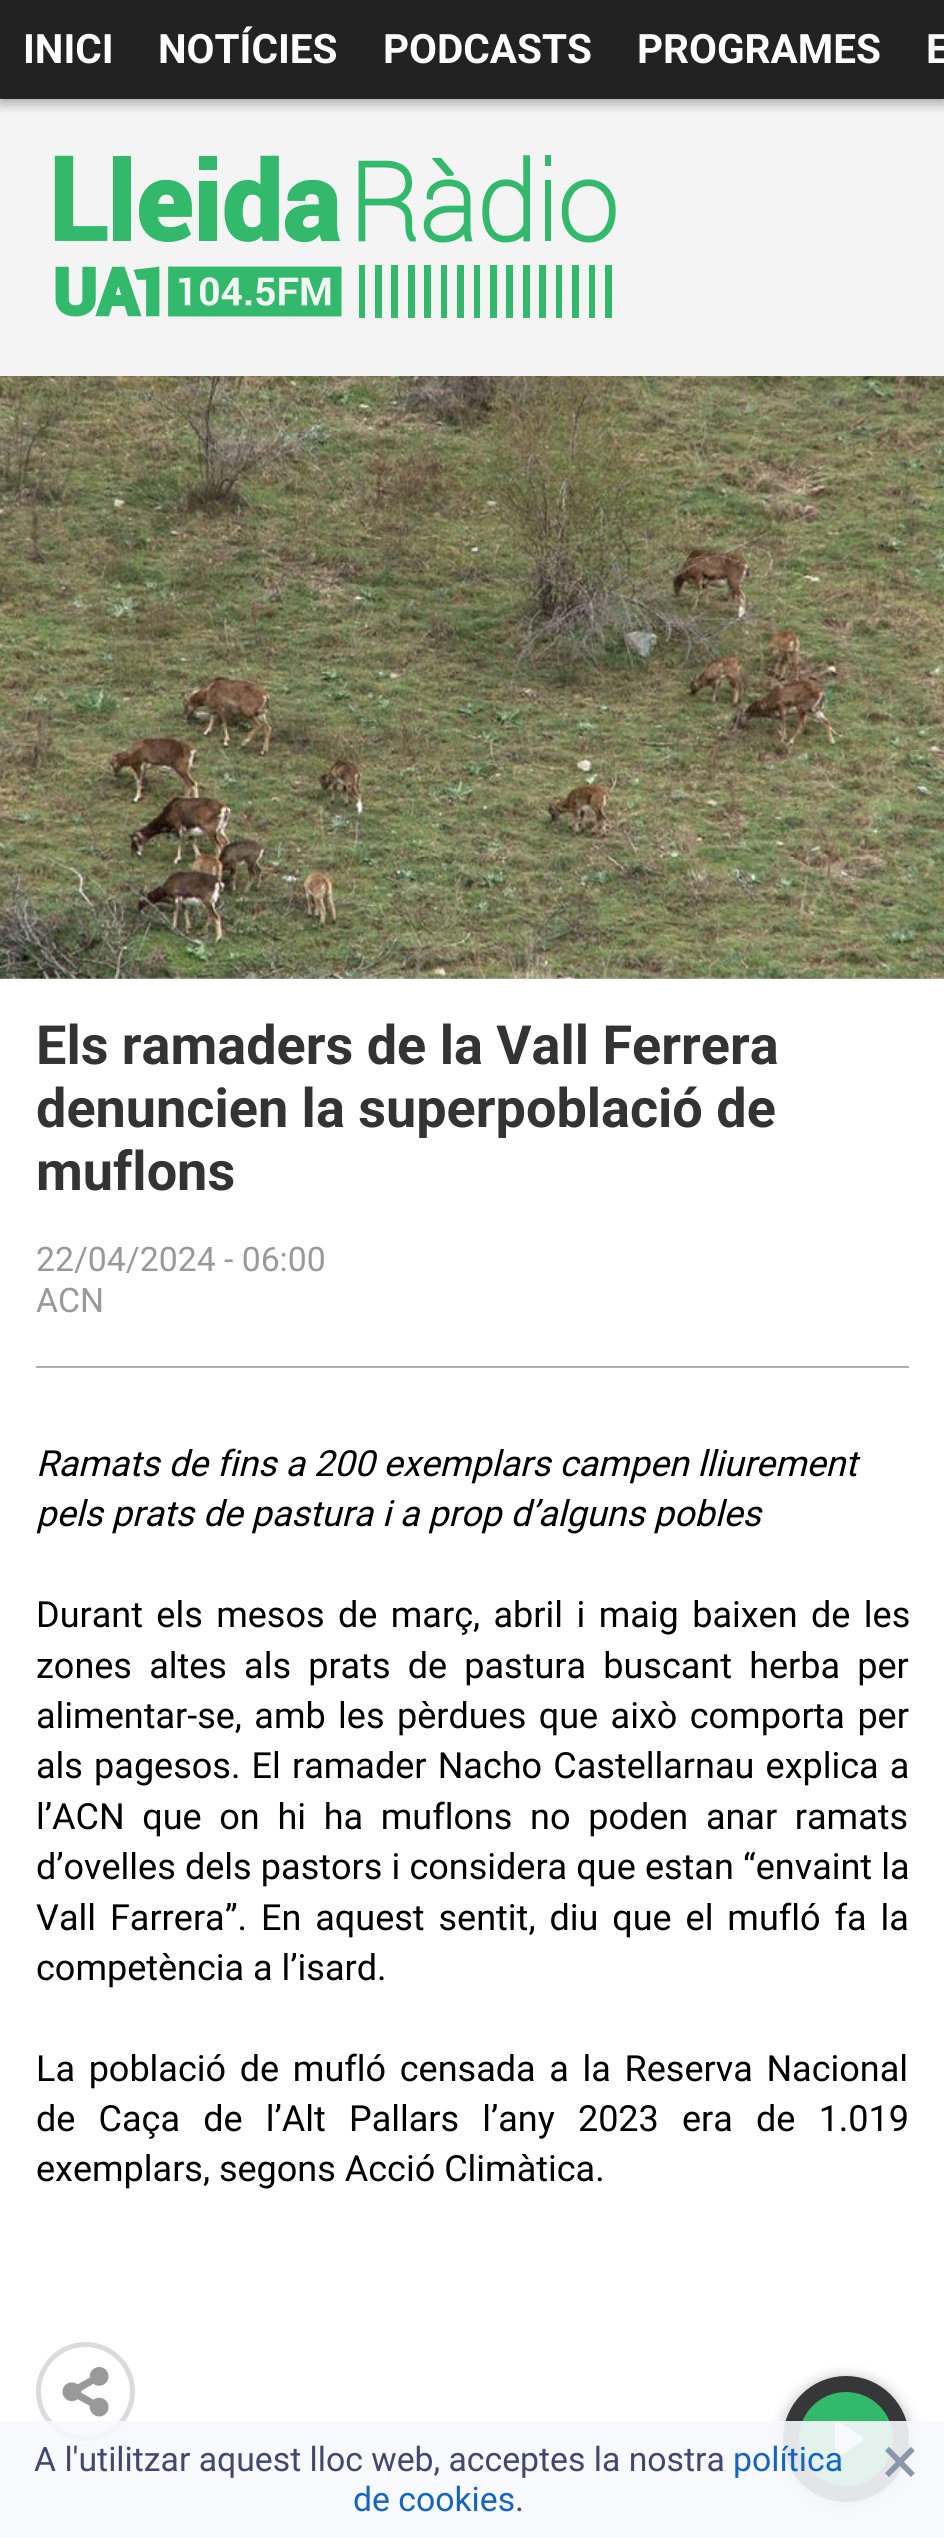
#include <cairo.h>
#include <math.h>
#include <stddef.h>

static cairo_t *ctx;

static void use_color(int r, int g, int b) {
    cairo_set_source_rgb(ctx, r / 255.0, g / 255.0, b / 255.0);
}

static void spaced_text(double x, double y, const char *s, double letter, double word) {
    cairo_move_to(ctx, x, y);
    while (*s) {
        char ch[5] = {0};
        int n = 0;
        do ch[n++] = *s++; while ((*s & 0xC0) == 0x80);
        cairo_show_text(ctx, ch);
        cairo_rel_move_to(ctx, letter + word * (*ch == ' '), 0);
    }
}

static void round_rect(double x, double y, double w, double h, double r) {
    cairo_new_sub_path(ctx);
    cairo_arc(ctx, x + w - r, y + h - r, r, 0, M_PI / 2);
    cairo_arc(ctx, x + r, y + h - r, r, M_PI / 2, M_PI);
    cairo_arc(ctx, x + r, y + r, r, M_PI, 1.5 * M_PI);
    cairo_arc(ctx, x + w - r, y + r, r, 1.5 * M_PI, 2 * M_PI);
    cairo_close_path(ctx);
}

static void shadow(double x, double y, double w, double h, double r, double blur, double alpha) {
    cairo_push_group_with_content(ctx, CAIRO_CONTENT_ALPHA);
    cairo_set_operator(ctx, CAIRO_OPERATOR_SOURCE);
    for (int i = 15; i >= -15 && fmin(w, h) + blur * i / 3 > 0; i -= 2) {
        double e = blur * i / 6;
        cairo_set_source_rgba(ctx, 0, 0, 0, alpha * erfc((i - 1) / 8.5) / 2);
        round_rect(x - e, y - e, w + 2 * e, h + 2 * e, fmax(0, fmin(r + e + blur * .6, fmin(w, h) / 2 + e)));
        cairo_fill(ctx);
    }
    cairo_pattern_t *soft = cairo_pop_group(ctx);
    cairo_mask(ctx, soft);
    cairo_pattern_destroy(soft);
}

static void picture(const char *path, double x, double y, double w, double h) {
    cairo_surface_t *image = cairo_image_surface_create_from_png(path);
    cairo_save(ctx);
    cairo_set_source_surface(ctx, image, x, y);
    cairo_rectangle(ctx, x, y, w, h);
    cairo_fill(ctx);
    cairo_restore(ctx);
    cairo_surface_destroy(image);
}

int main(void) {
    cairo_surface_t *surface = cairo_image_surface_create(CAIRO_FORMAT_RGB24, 944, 2538);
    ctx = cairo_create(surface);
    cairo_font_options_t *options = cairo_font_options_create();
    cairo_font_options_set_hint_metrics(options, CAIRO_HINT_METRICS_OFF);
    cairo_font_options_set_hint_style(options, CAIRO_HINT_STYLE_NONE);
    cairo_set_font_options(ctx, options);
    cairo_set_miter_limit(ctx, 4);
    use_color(255, 255, 255);
    cairo_paint(ctx);
    picture("img2.png", 0, 376, 944, 603);
    use_color(0, 0, 0);
    shadow(0, 5, 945, 375, 0, 5.5, 0.1);
    use_color(244, 244, 244);
    cairo_rectangle(ctx, 0, 99, 944, 277);
    cairo_fill(ctx);
    use_color(0, 0, 0);
    shadow(0, 5, 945, 99, 0, 5.5, 0.3);
    use_color(34, 34, 34);
    cairo_rectangle(ctx, 0, 0, 944, 99);
    cairo_fill(ctx);
    cairo_select_font_face(ctx, "Roboto", CAIRO_FONT_SLANT_NORMAL, CAIRO_FONT_WEIGHT_BOLD);
    cairo_set_font_size(ctx, 40.5);
    use_color(255, 255, 255);
    cairo_move_to(ctx, 23, 63);
    cairo_show_text(ctx, "INICI");
    cairo_move_to(ctx, 158, 63);
    cairo_show_text(ctx, "NOTÍCIES");
    cairo_move_to(ctx, 383, 63);
    cairo_show_text(ctx, "PODCASTS");
    cairo_move_to(ctx, 637, 63);
    cairo_show_text(ctx, "PROGRAMES");
    cairo_move_to(ctx, 926, 63);
    cairo_show_text(ctx, "E");
    use_color(0, 0, 0);
    shadow(783, 2378, 126, 126, 63, 7, 0.3);
    use_color(50, 185, 107);
    cairo_arc(ctx, 846, 2439, 55, 0, 2 * M_PI);
    cairo_fill_preserve(ctx);
    use_color(54, 55, 56);
    cairo_set_line_width(ctx, 16);
    cairo_stroke(ctx);
    use_color(255, 255, 255);
    cairo_new_path(ctx);
    cairo_move_to(ctx, 835, 2424.5);
    cairo_line_to(ctx, 835, 2453.5);
    cairo_curve_to(ctx, 835, 2455.5, 837, 2457, 839, 2456);
    cairo_line_to(ctx, 862, 2441.5);
    cairo_curve_to(ctx, 863.5, 2440.5, 863.5, 2437.5, 862, 2436.5);
    cairo_line_to(ctx, 839, 2422);
    cairo_curve_to(ctx, 837, 2421, 835, 2422.5, 835, 2424.5);
    cairo_close_path(ctx);
    cairo_fill(ctx);
    picture("img1.png", 54, 155, 562, 163);
    cairo_set_font_size(ctx, 54);
    use_color(51, 51, 51);
    cairo_move_to(ctx, 36, 1064);
    cairo_show_text(ctx, "Els ramaders de la Vall Ferrera");
    cairo_move_to(ctx, 36, 1127);
    cairo_show_text(ctx, "denuncien la superpoblació de");
    cairo_move_to(ctx, 36, 1190);
    cairo_show_text(ctx, "muflons");
    use_color(174, 174, 174);
    cairo_rectangle(ctx, 36, 1366, 873, 2);
    cairo_fill(ctx);
    cairo_select_font_face(ctx, "Roboto", CAIRO_FONT_SLANT_NORMAL, CAIRO_FONT_WEIGHT_NORMAL);
    cairo_set_font_size(ctx, 33.75);
    use_color(153, 153, 153);
    cairo_move_to(ctx, 36, 1271);
    cairo_show_text(ctx, "22/04/2024 - 06:00");
    cairo_move_to(ctx, 36, 1312);
    cairo_show_text(ctx, "ACN");
    cairo_select_font_face(ctx, "Roboto", CAIRO_FONT_SLANT_ITALIC, CAIRO_FONT_WEIGHT_NORMAL);
    cairo_set_font_size(ctx, 36);
    use_color(0, 0, 0);
    cairo_move_to(ctx, 36, 1476);
    cairo_show_text(ctx, "Ramats de fins a 200 exemplars campen lliurement");
    cairo_move_to(ctx, 36, 1526);
    cairo_show_text(ctx, "pels prats de pastura i a prop d’alguns pobles");
    cairo_select_font_face(ctx, "Roboto", CAIRO_FONT_SLANT_NORMAL, CAIRO_FONT_WEIGHT_NORMAL);
    spaced_text(36, 1627, "Durant els mesos de març, abril i maig baixen de les", 0, 4.5);
    spaced_text(36, 1678, "zones altes als prats de pastura buscant herba per", 0, 8.25);
    spaced_text(36, 1728, "alimentar-se, amb les pèrdues que això comporta per", 0, 3.5);
    spaced_text(36, 1778, "als pagesos. El ramader Nacho Castellarnau explica a", 0, 2.25);
    spaced_text(36, 1829, "l’ACN que on hi ha muflons no poden anar ramats", 0, 8.75);
    spaced_text(36, 1879, "d’ovelles dels pastors i considera que estan “envaint la", 0, 0.25);
    spaced_text(36, 1930, "Vall Farrera”. En aquest sentit, diu que el mufló fa la", 0, 5);
    cairo_move_to(ctx, 36, 1980);
    cairo_show_text(ctx, "competència a l’isard.");
    spaced_text(36, 2081, "La població de mufló censada a la Reserva Nacional", 0, 4.75);
    spaced_text(36, 2131, "de Caça de l’Alt Pallars l’any 2023 era de 1.019", 0, 14.25);
    cairo_move_to(ctx, 36, 2181);
    cairo_show_text(ctx, "exemplars, segons Acció Climàtica.");
    cairo_new_path(ctx);
    cairo_arc(ctx, 85.5, 2391.5, 47, 0, 2 * M_PI);
    use_color(219, 219, 219);
    cairo_set_line_width(ctx, 5);
    cairo_stroke(ctx);
    picture("img3.png", 62, 2367, 47, 50);
    cairo_set_source_rgba(ctx, 0.965, 0.976, 0.988, 0.9);
    cairo_rectangle(ctx, 0, 2421, 944, 117);
    cairo_fill(ctx);
    cairo_set_font_size(ctx, 33.75);
    use_color(66, 71, 112);
    cairo_move_to(ctx, 34, 2471);
    cairo_show_text(ctx, "A l'utilitzar aquest lloc web, acceptes la nostra");
    use_color(21, 101, 192);
    cairo_move_to(ctx, 733, 2471);
    cairo_show_text(ctx, "política");
    cairo_move_to(ctx, 353, 2511);
    cairo_show_text(ctx, "de cookies");
    use_color(66, 71, 112);
    cairo_move_to(ctx, 515, 2511);
    cairo_show_text(ctx, ".");
    cairo_set_font_size(ctx, 68);
    use_color(136, 152, 170);
    cairo_move_to(ctx, 882, 2484);
    cairo_show_text(ctx, "×");
    cairo_surface_write_to_png(surface, "result.png");
    cairo_font_options_destroy(options);
    cairo_destroy(ctx);
    cairo_surface_destroy(surface);
    return 0;
}
